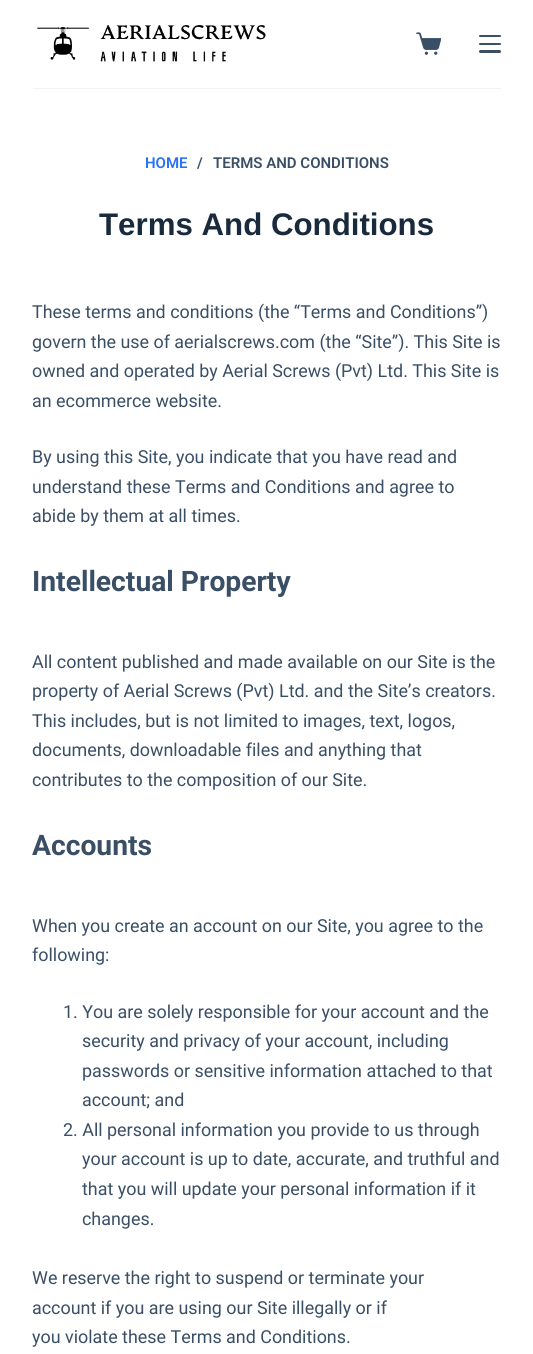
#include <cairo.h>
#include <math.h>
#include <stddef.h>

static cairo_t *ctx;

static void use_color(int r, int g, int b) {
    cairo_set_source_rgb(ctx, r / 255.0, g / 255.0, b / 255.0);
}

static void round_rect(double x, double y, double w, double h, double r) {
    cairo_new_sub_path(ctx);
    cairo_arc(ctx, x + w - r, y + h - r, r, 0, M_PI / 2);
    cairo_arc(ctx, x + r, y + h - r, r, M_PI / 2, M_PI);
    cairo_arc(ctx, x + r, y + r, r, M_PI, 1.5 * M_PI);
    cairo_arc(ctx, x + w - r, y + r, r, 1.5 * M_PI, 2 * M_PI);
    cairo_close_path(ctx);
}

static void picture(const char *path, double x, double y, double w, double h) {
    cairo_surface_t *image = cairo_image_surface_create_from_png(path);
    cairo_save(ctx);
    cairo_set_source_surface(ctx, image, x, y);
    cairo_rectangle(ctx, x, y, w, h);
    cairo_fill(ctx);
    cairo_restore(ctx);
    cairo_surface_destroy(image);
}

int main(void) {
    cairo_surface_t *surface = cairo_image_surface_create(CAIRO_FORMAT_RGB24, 533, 1354);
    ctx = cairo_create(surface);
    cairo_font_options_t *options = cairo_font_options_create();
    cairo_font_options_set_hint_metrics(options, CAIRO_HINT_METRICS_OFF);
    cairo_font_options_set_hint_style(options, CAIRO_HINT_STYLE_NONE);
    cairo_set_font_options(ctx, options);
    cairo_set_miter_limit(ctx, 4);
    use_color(255, 255, 255);
    cairo_paint(ctx);
    use_color(242, 242, 242);
    cairo_rectangle(ctx, 33, 88, 468, 1);
    cairo_fill(ctx);
    picture("img1.png", 37, 25, 229, 37);
    picture("img2.png", 416, 32, 25, 23);
    use_color(58, 79, 102);
    round_rect(479, 35, 22, 2, 1);
    cairo_fill(ctx);
    round_rect(479, 43, 22, 2, 1);
    cairo_fill(ctx);
    round_rect(479, 50, 22, 3, 1.5);
    cairo_fill(ctx);
    cairo_select_font_face(ctx, "Roboto SemiBold", CAIRO_FONT_SLANT_NORMAL, CAIRO_FONT_WEIGHT_NORMAL);
    cairo_set_font_size(ctx, 15);
    use_color(40, 114, 250);
    cairo_move_to(ctx, 145, 168);
    cairo_show_text(ctx, "HOME");
    use_color(58, 79, 102);
    cairo_move_to(ctx, 197, 168);
    cairo_show_text(ctx, "/");
    cairo_move_to(ctx, 213, 168);
    cairo_show_text(ctx, "TERMS AND CONDITIONS");
    cairo_select_font_face(ctx, "Liberation Sans", CAIRO_FONT_SLANT_NORMAL, CAIRO_FONT_WEIGHT_BOLD);
    cairo_set_font_size(ctx, 31.25);
    use_color(25, 42, 61);
    cairo_move_to(ctx, 99, 235);
    cairo_show_text(ctx, "Terms And Conditions");
    cairo_select_font_face(ctx, "Roboto", CAIRO_FONT_SLANT_NORMAL, CAIRO_FONT_WEIGHT_NORMAL);
    cairo_set_font_size(ctx, 17.9);
    use_color(58, 79, 102);
    cairo_move_to(ctx, 32, 318);
    cairo_show_text(ctx, "These terms and conditions (the “Terms and Conditions”)");
    cairo_move_to(ctx, 32, 348);
    cairo_show_text(ctx, "govern the use of aerialscrews.com (the “Site”). This Site is");
    cairo_move_to(ctx, 32, 377);
    cairo_show_text(ctx, "owned and operated by Aerial Screws (Pvt) Ltd. This Site is");
    cairo_move_to(ctx, 32, 407);
    cairo_show_text(ctx, "an ecommerce website.");
    cairo_move_to(ctx, 32, 463);
    cairo_show_text(ctx, "By using this Site, you indicate that you have read and");
    cairo_move_to(ctx, 32, 493);
    cairo_show_text(ctx, "understand these Terms and Conditions and agree to");
    cairo_move_to(ctx, 32, 522);
    cairo_show_text(ctx, "abide by them at all times.");
    cairo_select_font_face(ctx, "Roboto", CAIRO_FONT_SLANT_NORMAL, CAIRO_FONT_WEIGHT_BOLD);
    cairo_set_font_size(ctx, 28.25);
    cairo_move_to(ctx, 32, 591);
    cairo_show_text(ctx, "Intellectual Property");
    cairo_select_font_face(ctx, "Roboto", CAIRO_FONT_SLANT_NORMAL, CAIRO_FONT_WEIGHT_NORMAL);
    cairo_set_font_size(ctx, 17.9);
    cairo_move_to(ctx, 32, 668);
    cairo_show_text(ctx, "All content published and made available on our Site is the");
    cairo_move_to(ctx, 32, 697);
    cairo_show_text(ctx, "property of Aerial Screws (Pvt) Ltd. and the Site’s creators.");
    cairo_move_to(ctx, 32, 727);
    cairo_show_text(ctx, "This includes, but is not limited to images, text, logos,");
    cairo_move_to(ctx, 32, 756);
    cairo_show_text(ctx, "documents, downloadable files and anything that");
    cairo_move_to(ctx, 32, 786);
    cairo_show_text(ctx, "contributes to the composition of our Site.");
    cairo_select_font_face(ctx, "Roboto", CAIRO_FONT_SLANT_NORMAL, CAIRO_FONT_WEIGHT_BOLD);
    cairo_set_font_size(ctx, 28.25);
    cairo_move_to(ctx, 32, 855);
    cairo_show_text(ctx, "Accounts");
    cairo_select_font_face(ctx, "Roboto", CAIRO_FONT_SLANT_NORMAL, CAIRO_FONT_WEIGHT_NORMAL);
    cairo_set_font_size(ctx, 17.9);
    cairo_move_to(ctx, 32, 932);
    cairo_show_text(ctx, "When you create an account on our Site, you agree to the");
    cairo_move_to(ctx, 32, 961);
    cairo_show_text(ctx, "following:");
    cairo_move_to(ctx, 63, 1018);
    cairo_show_text(ctx, "1. You are solely responsible for your account and the");
    cairo_move_to(ctx, 82, 1047);
    cairo_show_text(ctx, "security and privacy of your account, including");
    cairo_move_to(ctx, 82, 1077);
    cairo_show_text(ctx, "passwords or sensitive information attached to that");
    cairo_move_to(ctx, 82, 1106);
    cairo_show_text(ctx, "account; and");
    cairo_move_to(ctx, 63, 1136);
    cairo_show_text(ctx, "2. All personal information you provide to us through");
    cairo_move_to(ctx, 82, 1165);
    cairo_show_text(ctx, "your account is up to date, accurate, and truthful and");
    cairo_move_to(ctx, 82, 1195);
    cairo_show_text(ctx, "that you will update your personal information if it");
    cairo_move_to(ctx, 82, 1225);
    cairo_show_text(ctx, "changes.");
    cairo_move_to(ctx, 32, 1284);
    cairo_show_text(ctx, "We reserve the right to suspend or terminate your");
    cairo_move_to(ctx, 32, 1314);
    cairo_show_text(ctx, "account if you are using our Site illegally or if");
    cairo_move_to(ctx, 32, 1343);
    cairo_show_text(ctx, "you violate these Terms and Conditions.");
    cairo_surface_write_to_png(surface, "result.png");
    cairo_font_options_destroy(options);
    cairo_destroy(ctx);
    cairo_surface_destroy(surface);
    return 0;
}
